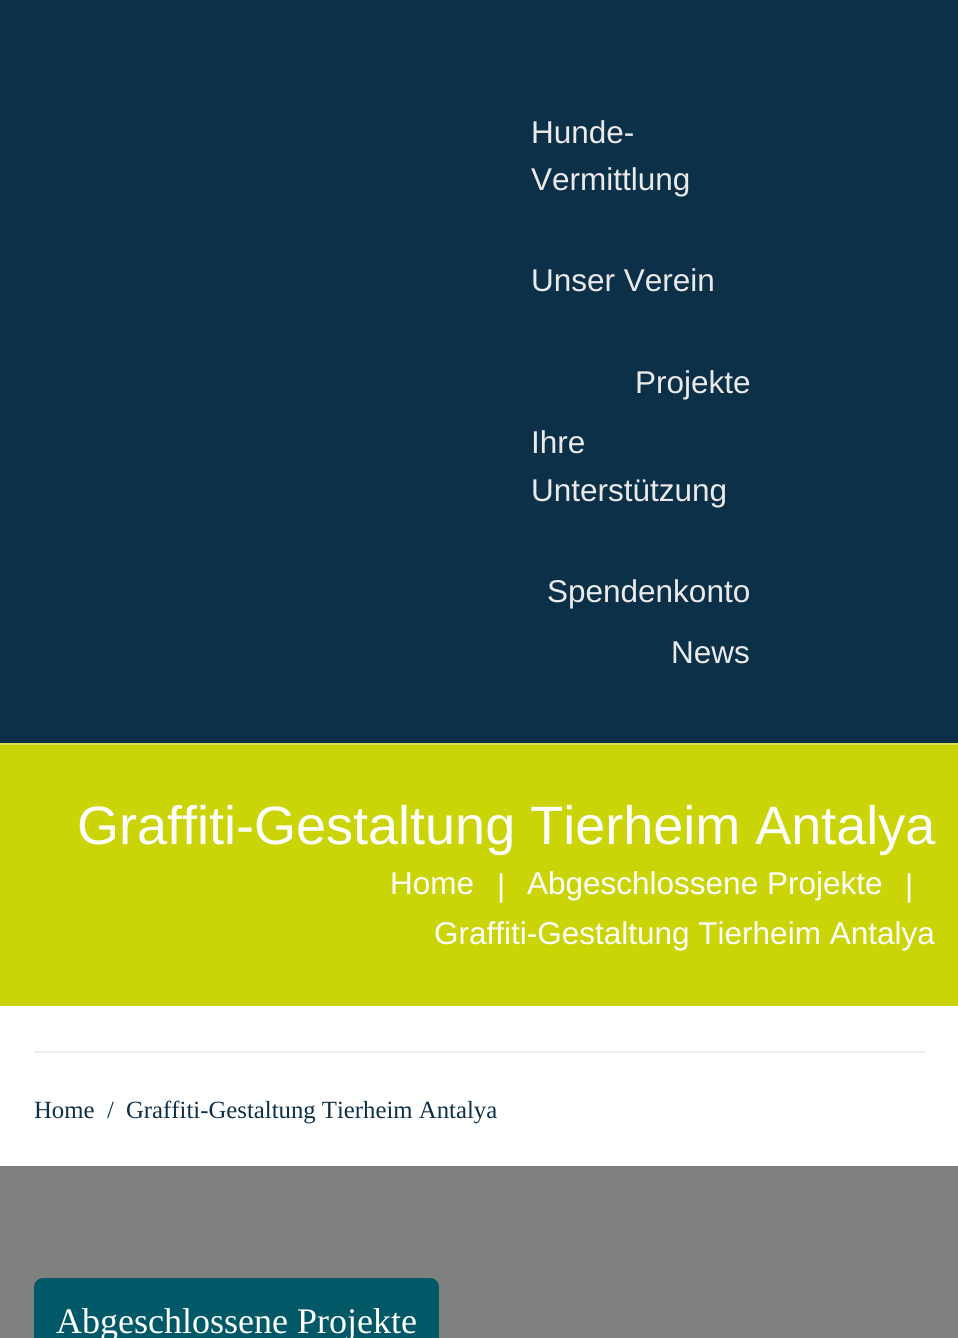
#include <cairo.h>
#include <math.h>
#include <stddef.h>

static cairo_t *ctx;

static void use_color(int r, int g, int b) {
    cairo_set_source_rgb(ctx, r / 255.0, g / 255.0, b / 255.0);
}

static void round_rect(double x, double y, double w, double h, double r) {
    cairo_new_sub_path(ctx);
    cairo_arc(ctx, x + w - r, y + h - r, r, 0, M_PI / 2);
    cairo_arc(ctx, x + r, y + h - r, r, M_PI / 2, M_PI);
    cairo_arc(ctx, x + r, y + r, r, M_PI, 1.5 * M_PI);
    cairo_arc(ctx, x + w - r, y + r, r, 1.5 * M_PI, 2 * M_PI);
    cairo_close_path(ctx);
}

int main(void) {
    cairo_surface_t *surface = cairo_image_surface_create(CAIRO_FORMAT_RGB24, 958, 1338);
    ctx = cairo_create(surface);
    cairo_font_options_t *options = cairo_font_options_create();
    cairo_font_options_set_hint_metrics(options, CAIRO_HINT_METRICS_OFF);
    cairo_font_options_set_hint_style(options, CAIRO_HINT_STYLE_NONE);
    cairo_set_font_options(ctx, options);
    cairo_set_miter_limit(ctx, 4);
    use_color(255, 255, 255);
    cairo_paint(ctx);
    use_color(13, 48, 73);
    cairo_rectangle(ctx, 0, 0, 958, 743);
    cairo_fill(ctx);
    cairo_select_font_face(ctx, "Liberation Sans", CAIRO_FONT_SLANT_NORMAL, CAIRO_FONT_WEIGHT_NORMAL);
    cairo_set_font_size(ctx, 31.5);
    use_color(235, 234, 234);
    cairo_move_to(ctx, 531, 143);
    cairo_show_text(ctx, "Hunde-");
    cairo_move_to(ctx, 531, 190);
    cairo_show_text(ctx, "Vermittlung");
    cairo_move_to(ctx, 531, 291);
    cairo_show_text(ctx, "Unser Verein");
    cairo_move_to(ctx, 635, 393);
    cairo_show_text(ctx, "Projekte");
    cairo_move_to(ctx, 531, 453);
    cairo_show_text(ctx, "Ihre");
    cairo_move_to(ctx, 531, 501);
    cairo_show_text(ctx, "Unterstützung");
    cairo_move_to(ctx, 547, 602);
    cairo_show_text(ctx, "Spendenkonto");
    cairo_move_to(ctx, 671, 663);
    cairo_show_text(ctx, "News");
    use_color(202, 212, 7);
    cairo_rectangle(ctx, 0, 745, 958, 261);
    cairo_fill(ctx);
    use_color(218, 225, 81);
    cairo_rectangle(ctx, 0, 743, 958, 2);
    cairo_fill(ctx);
    cairo_set_font_size(ctx, 54);
    use_color(255, 255, 255);
    cairo_move_to(ctx, 77, 844);
    cairo_show_text(ctx, "Graffiti-Gestaltung Tierheim Antalya");
    cairo_set_font_size(ctx, 31.5);
    cairo_move_to(ctx, 390, 894);
    cairo_show_text(ctx, "Home");
    cairo_move_to(ctx, 497, 896);
    cairo_show_text(ctx, "|");
    cairo_move_to(ctx, 527, 894);
    cairo_show_text(ctx, "Abgeschlossene Projekte");
    cairo_move_to(ctx, 905, 896);
    cairo_show_text(ctx, "|");
    cairo_move_to(ctx, 434, 944);
    cairo_show_text(ctx, "Graffiti-Gestaltung Tierheim Antalya");
    use_color(235, 236, 237);
    cairo_rectangle(ctx, 34, 1051, 891, 2);
    cairo_fill(ctx);
    cairo_select_font_face(ctx, "Liberation Serif", CAIRO_FONT_SLANT_NORMAL, CAIRO_FONT_WEIGHT_NORMAL);
    cairo_set_font_size(ctx, 24.75);
    use_color(13, 48, 73);
    cairo_move_to(ctx, 34, 1118);
    cairo_show_text(ctx, "Home");
    cairo_move_to(ctx, 107, 1118);
    cairo_show_text(ctx, "/");
    cairo_move_to(ctx, 126, 1118);
    cairo_show_text(ctx, "Graffiti-Gestaltung Tierheim Antalya");
    use_color(128, 128, 128);
    cairo_rectangle(ctx, 0, 1166, 958, 172);
    cairo_fill(ctx);
    use_color(1, 88, 102);
    round_rect(34, 1278, 405, 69, 9);
    cairo_fill(ctx);
    cairo_set_font_size(ctx, 36);
    use_color(255, 255, 255);
    cairo_move_to(ctx, 56, 1333);
    cairo_show_text(ctx, "Abgeschlossene Projekte");
    cairo_surface_write_to_png(surface, "result.png");
    cairo_font_options_destroy(options);
    cairo_destroy(ctx);
    cairo_surface_destroy(surface);
    return 0;
}
